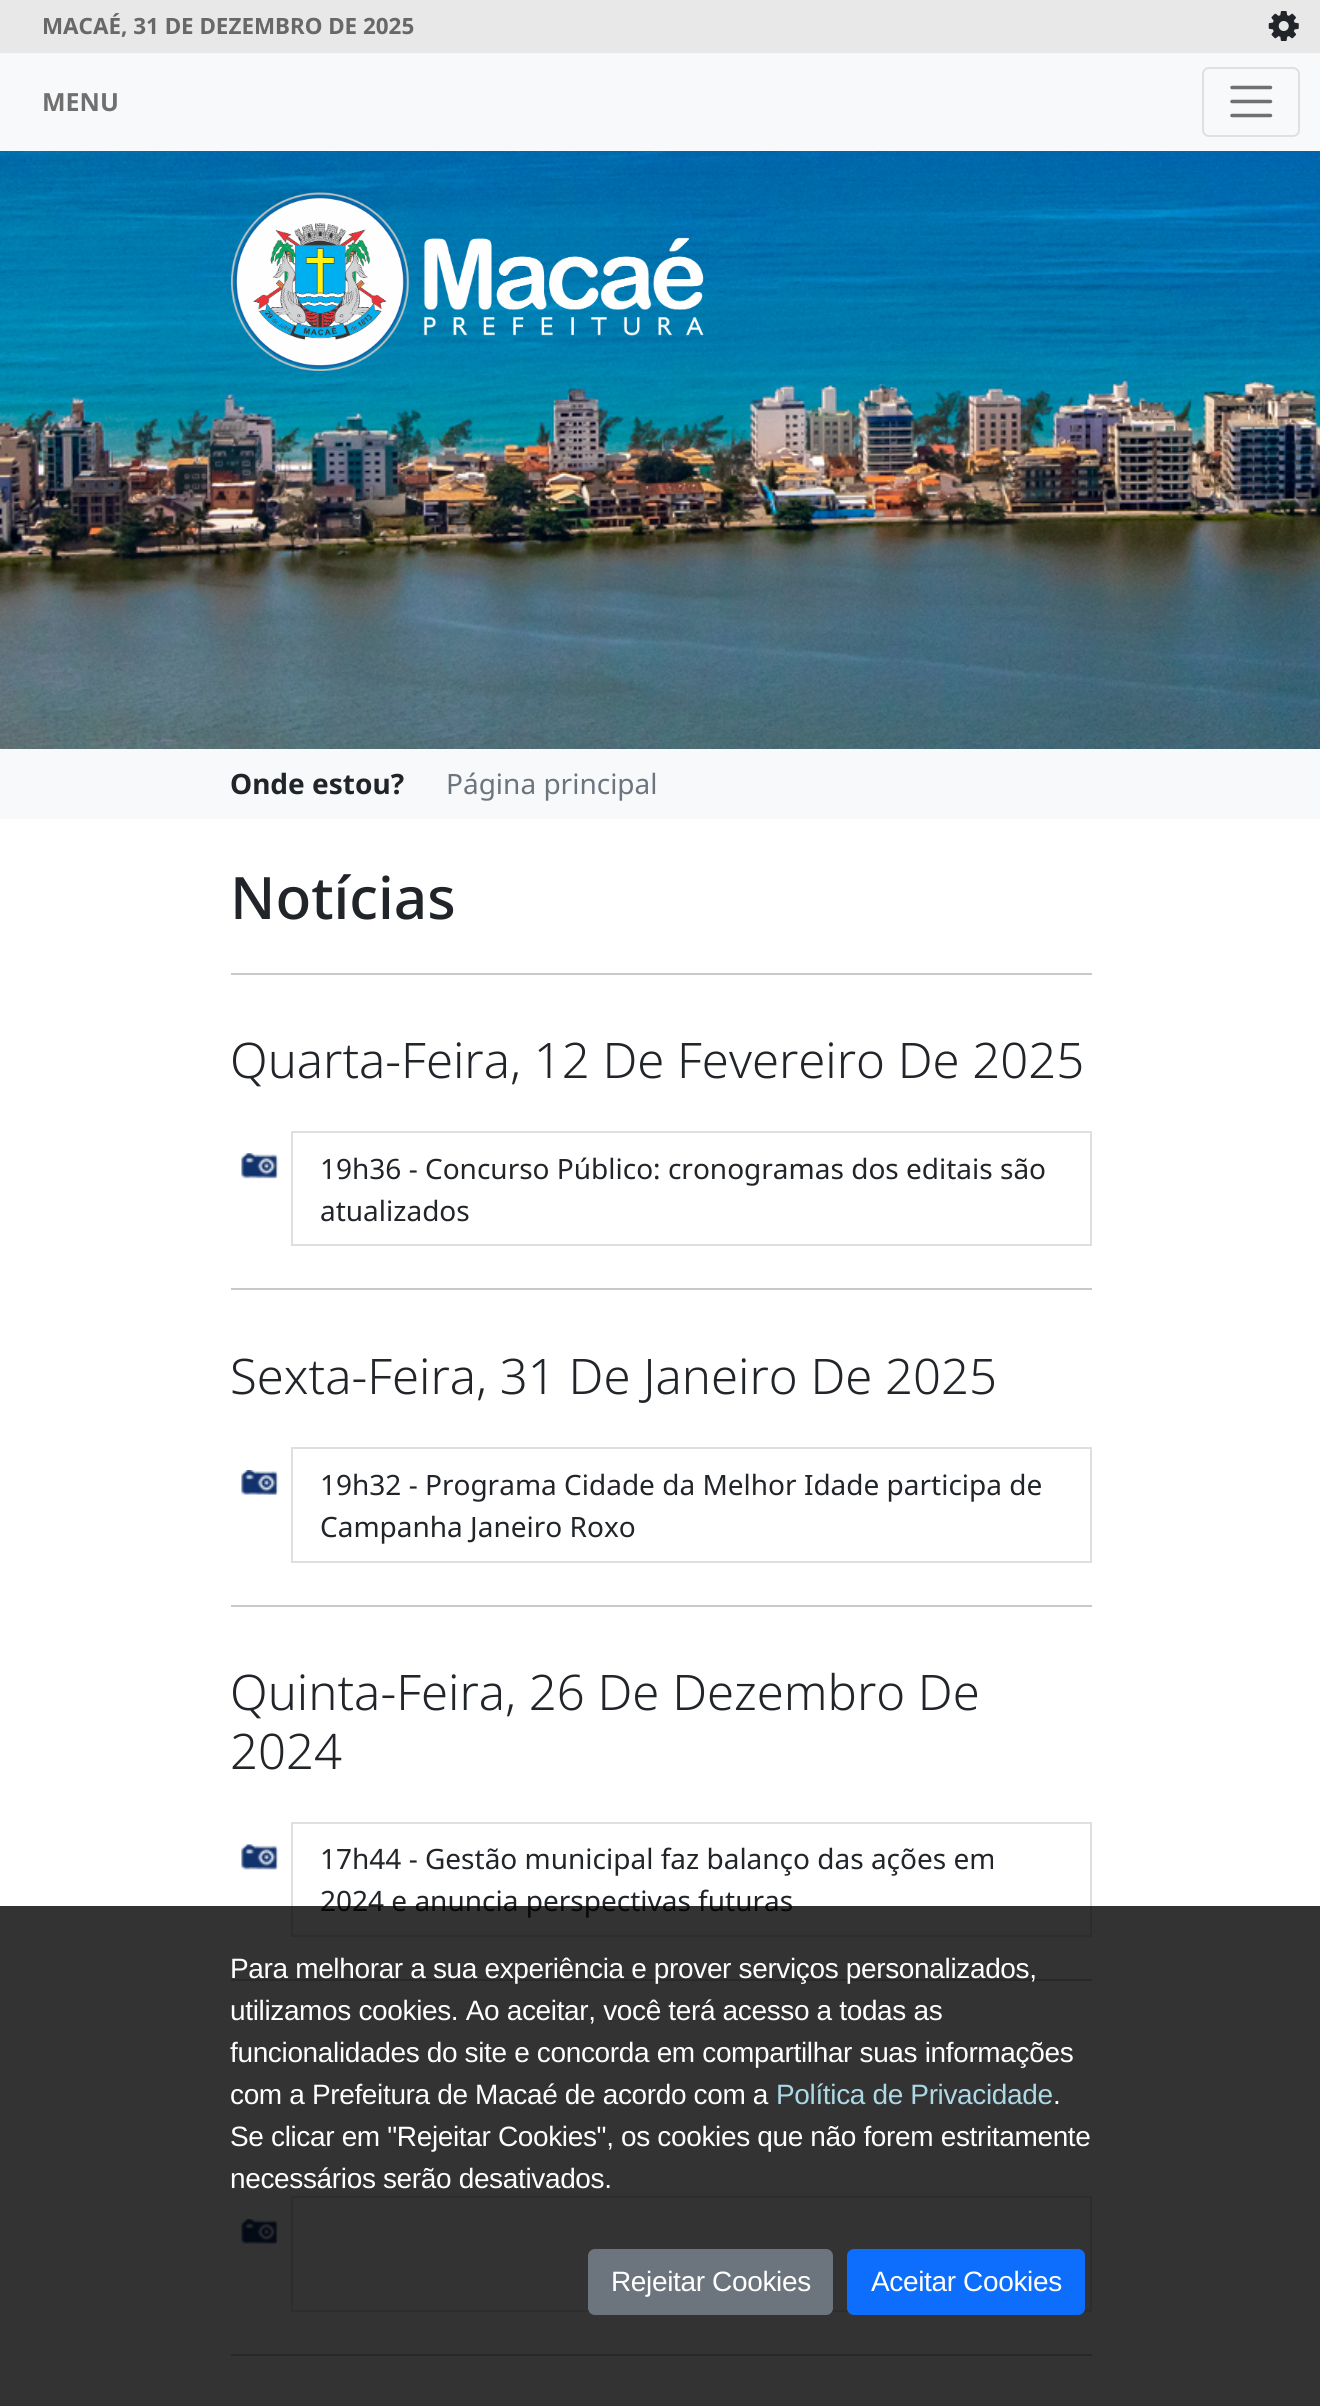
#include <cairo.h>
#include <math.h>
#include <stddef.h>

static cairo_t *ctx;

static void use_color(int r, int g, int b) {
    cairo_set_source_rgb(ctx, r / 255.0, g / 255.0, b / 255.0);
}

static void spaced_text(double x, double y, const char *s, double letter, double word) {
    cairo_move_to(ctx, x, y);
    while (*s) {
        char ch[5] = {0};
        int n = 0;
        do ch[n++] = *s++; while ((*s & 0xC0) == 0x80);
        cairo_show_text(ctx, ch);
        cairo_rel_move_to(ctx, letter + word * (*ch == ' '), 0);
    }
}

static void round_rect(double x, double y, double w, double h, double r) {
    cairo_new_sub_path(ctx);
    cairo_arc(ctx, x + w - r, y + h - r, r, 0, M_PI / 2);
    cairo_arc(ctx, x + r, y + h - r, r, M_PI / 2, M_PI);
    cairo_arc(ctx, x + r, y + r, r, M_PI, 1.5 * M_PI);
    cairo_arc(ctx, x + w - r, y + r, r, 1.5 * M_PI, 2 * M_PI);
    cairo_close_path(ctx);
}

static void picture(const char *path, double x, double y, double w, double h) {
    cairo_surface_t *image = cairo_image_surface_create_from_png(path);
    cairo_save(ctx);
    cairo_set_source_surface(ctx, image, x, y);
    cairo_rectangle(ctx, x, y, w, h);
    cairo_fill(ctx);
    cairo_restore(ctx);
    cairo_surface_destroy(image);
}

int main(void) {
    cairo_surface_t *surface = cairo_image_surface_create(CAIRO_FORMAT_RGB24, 1320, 2406);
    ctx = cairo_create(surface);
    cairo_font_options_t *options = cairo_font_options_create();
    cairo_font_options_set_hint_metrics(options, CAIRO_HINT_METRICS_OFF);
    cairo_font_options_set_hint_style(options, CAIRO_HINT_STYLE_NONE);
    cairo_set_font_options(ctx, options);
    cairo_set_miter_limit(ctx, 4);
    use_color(255, 255, 255);
    cairo_paint(ctx);
    use_color(232, 232, 232);
    cairo_rectangle(ctx, 0, 0, 1320, 53);
    cairo_fill(ctx);
    cairo_select_font_face(ctx, "Noto Sans", CAIRO_FONT_SLANT_NORMAL, CAIRO_FONT_WEIGHT_BOLD);
    cairo_set_font_size(ctx, 22.4);
    use_color(104, 104, 104);
    cairo_move_to(ctx, 42, 34);
    cairo_show_text(ctx, "MACAÉ, 31 DE DEZEMBRO DE 2025");
    picture("img1.png", 1268, 11, 31, 30);
    use_color(248, 249, 250);
    cairo_rectangle(ctx, 0, 53, 1320, 98);
    cairo_fill(ctx);
    cairo_set_font_size(ctx, 25);
    use_color(112, 112, 113);
    cairo_move_to(ctx, 42, 111);
    cairo_show_text(ctx, "MENU");
    round_rect(1203, 68, 96, 68, 6);
    use_color(223, 224, 225);
    cairo_stroke(ctx);
    cairo_new_path(ctx);
    cairo_move_to(ctx, 1232, 87.5);
    cairo_line_to(ctx, 1270.5, 87.5);
    cairo_move_to(ctx, 1232, 101.5);
    cairo_line_to(ctx, 1270.5, 101.5);
    cairo_move_to(ctx, 1232, 115.5);
    cairo_line_to(ctx, 1270.5, 115.5);
    use_color(112, 112, 113);
    cairo_set_line_width(ctx, 3.5);
    cairo_set_line_cap(ctx, CAIRO_LINE_CAP_ROUND);
    cairo_stroke(ctx);
    picture("img2.png", 0, 151, 1320, 598);
    picture("img3.png", 231, 192, 473, 179);
    use_color(248, 249, 250);
    cairo_rectangle(ctx, 0, 749, 1320, 70);
    cairo_fill(ctx);
    cairo_set_font_size(ctx, 28);
    use_color(33, 37, 41);
    cairo_move_to(ctx, 230, 794);
    cairo_show_text(ctx, "Onde estou?");
    cairo_select_font_face(ctx, "Noto Sans", CAIRO_FONT_SLANT_NORMAL, CAIRO_FONT_WEIGHT_NORMAL);
    use_color(108, 117, 125);
    cairo_move_to(ctx, 446, 794);
    cairo_show_text(ctx, "Página principal");
    cairo_select_font_face(ctx, "Noto Sans Medium", CAIRO_FONT_SLANT_NORMAL, CAIRO_FONT_WEIGHT_NORMAL);
    cairo_set_font_size(ctx, 58.5);
    use_color(33, 37, 41);
    cairo_move_to(ctx, 230, 919);
    cairo_show_text(ctx, "Notícias");
    use_color(200, 201, 202);
    cairo_rectangle(ctx, 231, 973, 861, 2);
    cairo_fill(ctx);
    cairo_select_font_face(ctx, "Noto Sans Light", CAIRO_FONT_SLANT_NORMAL, CAIRO_FONT_WEIGHT_NORMAL);
    cairo_set_font_size(ctx, 49);
    use_color(33, 37, 41);
    cairo_move_to(ctx, 230, 1078);
    cairo_show_text(ctx, "Quarta-Feira, 12 De Fevereiro De 2025");
    picture("img4.png", 241, 1153, 38, 26);
    cairo_rectangle(ctx, 292, 1132, 799, 113);
    use_color(223, 223, 223);
    cairo_set_line_width(ctx, 2);
    cairo_set_line_cap(ctx, CAIRO_LINE_CAP_BUTT);
    cairo_stroke(ctx);
    cairo_select_font_face(ctx, "Noto Sans", CAIRO_FONT_SLANT_NORMAL, CAIRO_FONT_WEIGHT_NORMAL);
    cairo_set_font_size(ctx, 28);
    use_color(33, 37, 41);
    cairo_move_to(ctx, 320, 1179);
    cairo_show_text(ctx, "19h36 - Concurso Público: cronogramas dos editais são");
    cairo_move_to(ctx, 320, 1221);
    cairo_show_text(ctx, "atualizados");
    use_color(200, 201, 202);
    cairo_rectangle(ctx, 231, 1288, 861, 2);
    cairo_fill(ctx);
    cairo_select_font_face(ctx, "Noto Sans Light", CAIRO_FONT_SLANT_NORMAL, CAIRO_FONT_WEIGHT_NORMAL);
    cairo_set_font_size(ctx, 49);
    use_color(33, 37, 41);
    cairo_move_to(ctx, 230, 1394);
    cairo_show_text(ctx, "Sexta-Feira, 31 De Janeiro De 2025");
    picture("img5.png", 241, 1470, 38, 25);
    cairo_rectangle(ctx, 292, 1448, 799, 114);
    use_color(223, 223, 223);
    cairo_stroke(ctx);
    cairo_select_font_face(ctx, "Noto Sans", CAIRO_FONT_SLANT_NORMAL, CAIRO_FONT_WEIGHT_NORMAL);
    cairo_set_font_size(ctx, 28);
    use_color(33, 37, 41);
    cairo_move_to(ctx, 320, 1495);
    cairo_show_text(ctx, "19h32 - Programa Cidade da Melhor Idade participa de");
    cairo_move_to(ctx, 320, 1537);
    cairo_show_text(ctx, "Campanha Janeiro Roxo");
    use_color(200, 201, 202);
    cairo_rectangle(ctx, 231, 1605, 861, 2);
    cairo_fill(ctx);
    cairo_select_font_face(ctx, "Noto Sans Light", CAIRO_FONT_SLANT_NORMAL, CAIRO_FONT_WEIGHT_NORMAL);
    cairo_set_font_size(ctx, 49);
    use_color(33, 37, 41);
    cairo_move_to(ctx, 230, 1710);
    cairo_show_text(ctx, "Quinta-Feira, 26 De Dezembro De");
    cairo_move_to(ctx, 230, 1769);
    cairo_show_text(ctx, "2024");
    picture("img6.png", 241, 1844, 38, 26);
    cairo_rectangle(ctx, 292, 1823, 799, 113);
    use_color(223, 223, 223);
    cairo_stroke(ctx);
    cairo_select_font_face(ctx, "Noto Sans", CAIRO_FONT_SLANT_NORMAL, CAIRO_FONT_WEIGHT_NORMAL);
    cairo_set_font_size(ctx, 28);
    use_color(33, 37, 41);
    cairo_move_to(ctx, 320, 1869);
    cairo_show_text(ctx, "17h44 - Gestão municipal faz balanço das ações em");
    cairo_move_to(ctx, 320, 1911);
    cairo_show_text(ctx, "2024 e anuncia perspectivas futuras");
    use_color(200, 201, 202);
    cairo_rectangle(ctx, 231, 1979, 861, 2);
    cairo_fill(ctx);
    picture("img5.png", 241, 2219, 38, 25);
    cairo_rectangle(ctx, 292, 2197, 799, 114);
    use_color(223, 223, 223);
    cairo_stroke(ctx);
    use_color(200, 201, 202);
    cairo_rectangle(ctx, 231, 2354, 861, 2);
    cairo_fill(ctx);
    cairo_set_source_rgba(ctx, 0, 0, 0, 0.8);
    cairo_rectangle(ctx, 0, 1906, 1320, 500);
    cairo_fill(ctx);
    cairo_select_font_face(ctx, "Liberation Sans", CAIRO_FONT_SLANT_NORMAL, CAIRO_FONT_WEIGHT_NORMAL);
    use_color(255, 255, 255);
    spaced_text(230, 1978, "Para melhorar a sua experiência e prover serviços personalizados,", -0.35, 0);
    spaced_text(230, 2020, "utilizamos cookies. Ao aceitar, você terá acesso a todas as", -0.35, 0);
    spaced_text(230, 2062, "funcionalidades do site e concorda em compartilhar suas informações", -0.35, 0);
    spaced_text(230, 2104, "com a Prefeitura de Macaé de acordo com a", -0.35, 0);
    use_color(173, 216, 230);
    spaced_text(776, 2104, "Política de Privacidade", -0.35, 0);
    use_color(255, 255, 255);
    spaced_text(1053, 2104, ".", -0.35, 0);
    spaced_text(230, 2146, "Se clicar em \"Rejeitar Cookies\", os cookies que não forem estritamente", -0.35, 0);
    spaced_text(230, 2188, "necessários serão desativados.", -0.35, 0);
    use_color(108, 117, 125);
    round_rect(589, 2250, 243, 64, 6);
    cairo_fill_preserve(ctx);
    cairo_stroke(ctx);
    use_color(255, 255, 255);
    spaced_text(611, 2291, "Rejeitar Cookies", -0.35, 0);
    use_color(13, 110, 253);
    round_rect(848, 2250, 236, 64, 6);
    cairo_fill_preserve(ctx);
    cairo_stroke(ctx);
    use_color(255, 255, 255);
    spaced_text(871, 2291, "Aceitar Cookies", -0.35, 0);
    cairo_surface_write_to_png(surface, "result.png");
    cairo_font_options_destroy(options);
    cairo_destroy(ctx);
    cairo_surface_destroy(surface);
    return 0;
}
